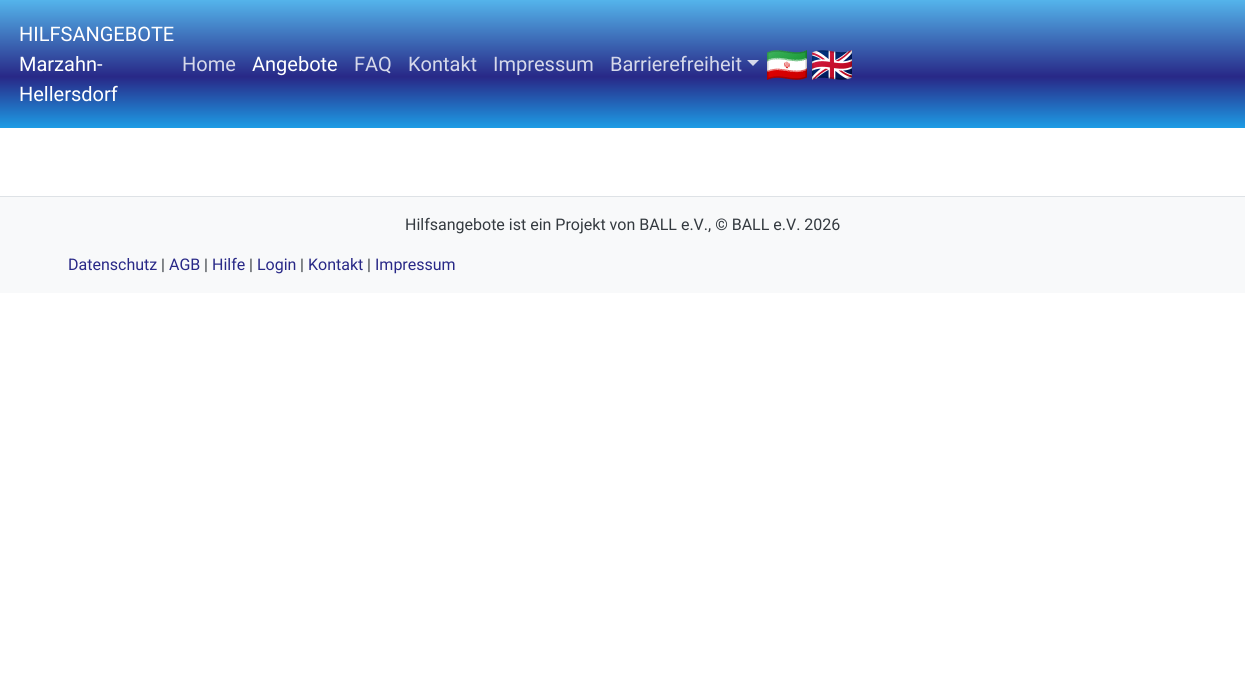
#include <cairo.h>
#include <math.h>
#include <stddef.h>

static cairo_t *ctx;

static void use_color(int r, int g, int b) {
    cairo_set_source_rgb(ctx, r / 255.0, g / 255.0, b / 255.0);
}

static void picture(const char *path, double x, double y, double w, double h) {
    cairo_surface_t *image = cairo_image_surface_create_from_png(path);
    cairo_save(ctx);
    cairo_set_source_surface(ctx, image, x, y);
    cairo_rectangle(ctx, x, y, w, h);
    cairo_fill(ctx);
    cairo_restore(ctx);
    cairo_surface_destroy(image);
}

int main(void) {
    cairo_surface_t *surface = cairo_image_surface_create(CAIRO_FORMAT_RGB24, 1245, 699);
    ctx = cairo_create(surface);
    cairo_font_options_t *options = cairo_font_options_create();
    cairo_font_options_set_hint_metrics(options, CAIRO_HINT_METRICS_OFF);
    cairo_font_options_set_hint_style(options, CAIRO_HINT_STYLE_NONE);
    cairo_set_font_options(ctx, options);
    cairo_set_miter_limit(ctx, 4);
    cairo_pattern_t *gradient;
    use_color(255, 255, 255);
    cairo_paint(ctx);
    gradient = cairo_pattern_create_linear(623, 0, 623, 128);
    cairo_pattern_add_color_stop_rgba(gradient, 0, 0.329, 0.706, 0.922, 1);
    cairo_pattern_add_color_stop_rgba(gradient, 0.6, 0.157, 0.157, 0.529, 1);
    cairo_pattern_add_color_stop_rgba(gradient, 1, 0.114, 0.612, 0.898, 1);
    cairo_set_source(ctx, gradient);
    cairo_pattern_destroy(gradient);
    cairo_rectangle(ctx, 0, 0, 1245, 128);
    cairo_fill(ctx);
    cairo_select_font_face(ctx, "Roboto", CAIRO_FONT_SLANT_NORMAL, CAIRO_FONT_WEIGHT_NORMAL);
    cairo_set_font_size(ctx, 20);
    use_color(255, 255, 255);
    cairo_move_to(ctx, 19, 41);
    cairo_show_text(ctx, "HILFSANGEBOTE");
    cairo_move_to(ctx, 19, 71);
    cairo_show_text(ctx, "Marzahn-");
    use_color(213, 216, 234);
    cairo_move_to(ctx, 182, 71);
    cairo_show_text(ctx, "Home");
    use_color(255, 255, 255);
    cairo_move_to(ctx, 252, 71);
    cairo_show_text(ctx, "Angebote");
    use_color(213, 216, 234);
    cairo_move_to(ctx, 354, 71);
    cairo_show_text(ctx, "FAQ");
    cairo_move_to(ctx, 408, 71);
    cairo_show_text(ctx, "Kontakt");
    cairo_move_to(ctx, 493, 71);
    cairo_show_text(ctx, "Impressum");
    cairo_move_to(ctx, 610, 71);
    cairo_show_text(ctx, "Barrierefreiheit");
    cairo_set_source_rgba(ctx, 1, 1, 1, 0.8);
    cairo_new_path(ctx);
    cairo_move_to(ctx, 747, 60);
    cairo_line_to(ctx, 759, 60);
    cairo_line_to(ctx, 753, 66);
    cairo_close_path(ctx);
    cairo_fill(ctx);
    picture("img1.png", 767, 50, 40, 30);
    picture("img2.png", 812, 50, 40, 30);
    use_color(255, 255, 255);
    cairo_move_to(ctx, 19, 101);
    cairo_show_text(ctx, "Hellersdorf");
    use_color(248, 249, 250);
    cairo_rectangle(ctx, 0, 197, 1245, 96);
    cairo_fill(ctx);
    use_color(222, 226, 230);
    cairo_rectangle(ctx, 0, 196, 1245, 1);
    cairo_fill(ctx);
    cairo_set_font_size(ctx, 16);
    use_color(52, 58, 64);
    cairo_move_to(ctx, 405, 230);
    cairo_show_text(ctx, "Hilfsangebote ist ein Projekt von BALL e.V., © BALL e.V. 2026");
    use_color(40, 40, 135);
    cairo_move_to(ctx, 68, 270);
    cairo_show_text(ctx, "Datenschutz");
    use_color(52, 58, 64);
    cairo_move_to(ctx, 161, 270);
    cairo_show_text(ctx, "|");
    use_color(40, 40, 135);
    cairo_move_to(ctx, 169, 270);
    cairo_show_text(ctx, "AGB");
    use_color(52, 58, 64);
    cairo_move_to(ctx, 204, 270);
    cairo_show_text(ctx, "|");
    use_color(40, 40, 135);
    cairo_move_to(ctx, 212, 270);
    cairo_show_text(ctx, "Hilfe");
    use_color(52, 58, 64);
    cairo_move_to(ctx, 249, 270);
    cairo_show_text(ctx, "|");
    use_color(40, 40, 135);
    cairo_move_to(ctx, 257, 270);
    cairo_show_text(ctx, "Login");
    use_color(52, 58, 64);
    cairo_move_to(ctx, 300, 270);
    cairo_show_text(ctx, "|");
    use_color(40, 40, 135);
    cairo_move_to(ctx, 308, 270);
    cairo_show_text(ctx, "Kontakt");
    use_color(52, 58, 64);
    cairo_move_to(ctx, 367, 270);
    cairo_show_text(ctx, "|");
    use_color(40, 40, 135);
    cairo_move_to(ctx, 375, 270);
    cairo_show_text(ctx, "Impressum");
    cairo_surface_write_to_png(surface, "result.png");
    cairo_font_options_destroy(options);
    cairo_destroy(ctx);
    cairo_surface_destroy(surface);
    return 0;
}
